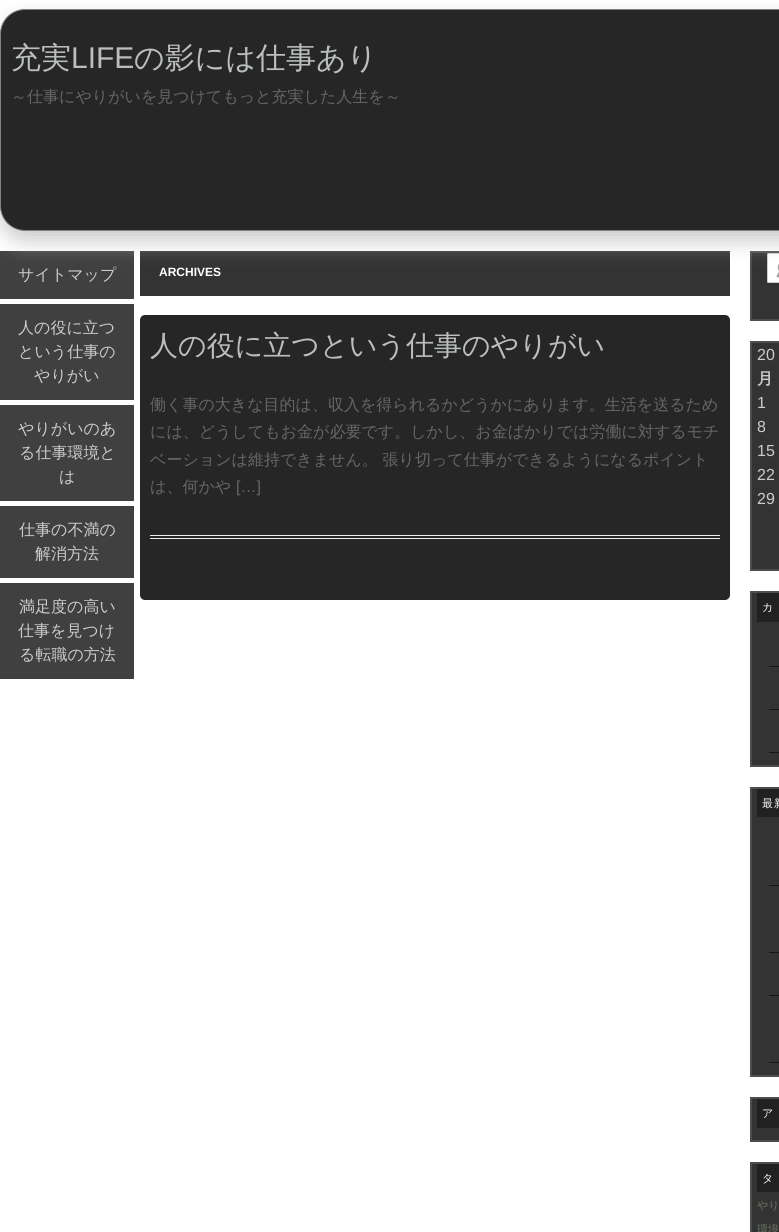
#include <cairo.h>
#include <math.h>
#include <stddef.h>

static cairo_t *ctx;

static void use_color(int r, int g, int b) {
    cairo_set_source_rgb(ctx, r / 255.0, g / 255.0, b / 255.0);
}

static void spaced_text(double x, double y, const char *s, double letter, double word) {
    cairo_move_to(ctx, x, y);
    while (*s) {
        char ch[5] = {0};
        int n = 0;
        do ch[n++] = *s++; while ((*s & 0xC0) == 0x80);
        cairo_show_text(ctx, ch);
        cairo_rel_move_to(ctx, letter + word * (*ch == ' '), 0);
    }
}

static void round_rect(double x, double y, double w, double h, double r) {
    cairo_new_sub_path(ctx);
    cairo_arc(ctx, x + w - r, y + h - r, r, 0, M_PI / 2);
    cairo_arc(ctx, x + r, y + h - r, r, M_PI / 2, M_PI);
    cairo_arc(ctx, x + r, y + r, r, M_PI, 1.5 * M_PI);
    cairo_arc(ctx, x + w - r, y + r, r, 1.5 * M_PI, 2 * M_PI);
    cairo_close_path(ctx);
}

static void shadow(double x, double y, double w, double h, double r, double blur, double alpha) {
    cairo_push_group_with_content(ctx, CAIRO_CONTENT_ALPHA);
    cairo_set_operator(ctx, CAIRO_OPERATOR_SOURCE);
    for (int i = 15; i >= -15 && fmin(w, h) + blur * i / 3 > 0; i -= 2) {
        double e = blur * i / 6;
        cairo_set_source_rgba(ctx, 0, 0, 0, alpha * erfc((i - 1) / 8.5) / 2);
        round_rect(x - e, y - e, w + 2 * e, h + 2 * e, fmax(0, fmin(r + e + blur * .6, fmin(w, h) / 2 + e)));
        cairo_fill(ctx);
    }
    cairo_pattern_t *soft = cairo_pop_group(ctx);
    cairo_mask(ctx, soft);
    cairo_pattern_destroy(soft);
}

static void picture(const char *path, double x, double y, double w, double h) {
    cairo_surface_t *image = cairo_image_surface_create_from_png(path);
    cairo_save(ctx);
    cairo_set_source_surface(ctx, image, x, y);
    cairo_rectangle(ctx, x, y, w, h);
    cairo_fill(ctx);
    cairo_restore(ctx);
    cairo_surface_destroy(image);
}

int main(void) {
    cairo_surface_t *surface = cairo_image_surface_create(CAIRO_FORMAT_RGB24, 779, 1232);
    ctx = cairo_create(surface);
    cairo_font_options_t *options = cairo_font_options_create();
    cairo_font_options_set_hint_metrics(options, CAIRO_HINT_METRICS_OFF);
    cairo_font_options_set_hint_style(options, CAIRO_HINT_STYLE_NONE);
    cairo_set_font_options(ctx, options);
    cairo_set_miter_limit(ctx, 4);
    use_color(255, 255, 255);
    cairo_paint(ctx);
    use_color(64, 64, 64);
    cairo_rectangle(ctx, 0, 251, 134, 48);
    cairo_fill(ctx);
    use_color(51, 51, 51);
    cairo_rectangle(ctx, 140, 251, 590, 45);
    cairo_fill(ctx);
    cairo_rectangle(ctx, 751, 252, 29, 68);
    cairo_fill_preserve(ctx);
    use_color(77, 77, 77);
    cairo_stroke(ctx);
    use_color(255, 255, 255);
    round_rect(767, 253, 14, 30, 2);
    cairo_fill(ctx);
    picture("img1.png", 776, 264, 3, 14);
    round_rect(767.5, 253.5, 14, 29, 1.5);
    use_color(204, 204, 204);
    cairo_set_line_width(ctx, 1);
    cairo_stroke(ctx);
    cairo_save(ctx);
    cairo_set_fill_rule(ctx, CAIRO_FILL_RULE_EVEN_ODD);
    cairo_new_path(ctx);
    cairo_move_to(ctx, 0, 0);
    cairo_line_to(ctx, 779, 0);
    cairo_line_to(ctx, 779, 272);
    cairo_line_to(ctx, 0, 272);
    cairo_close_path(ctx);
    cairo_move_to(ctx, 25, 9);
    cairo_line_to(ctx, 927, 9);
    cairo_curve_to(ctx, 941, 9, 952, 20, 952, 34);
    cairo_line_to(ctx, 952, 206);
    cairo_curve_to(ctx, 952, 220, 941, 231, 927, 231);
    cairo_line_to(ctx, 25, 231);
    cairo_curve_to(ctx, 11, 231, 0, 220, 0, 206);
    cairo_line_to(ctx, 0, 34);
    cairo_curve_to(ctx, 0, 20, 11, 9, 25, 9);
    cairo_close_path(ctx);
    cairo_clip(ctx);
    use_color(204, 204, 204);
    shadow(0, 19, 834, 222, 25, 10, 1);
    cairo_restore(ctx);
    cairo_set_source_rgba(ctx, 0, 0, 0, 0.85);
    round_rect(0.5, 9.5, 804, 221, 24.5);
    cairo_fill_preserve(ctx);
    use_color(128, 128, 128);
    cairo_stroke(ctx);
    cairo_select_font_face(ctx, "WenQuanYi Zen Hei Medium", CAIRO_FONT_SLANT_NORMAL, CAIRO_FONT_WEIGHT_NORMAL);
    cairo_set_font_size(ctx, 30);
    use_color(186, 190, 191);
    cairo_move_to(ctx, 11, 68);
    cairo_show_text(ctx, "充実");
    cairo_select_font_face(ctx, "Liberation Sans", CAIRO_FONT_SLANT_NORMAL, CAIRO_FONT_WEIGHT_NORMAL);
    cairo_move_to(ctx, 71, 68);
    cairo_show_text(ctx, "LIFE");
    cairo_select_font_face(ctx, "WenQuanYi Zen Hei Medium", CAIRO_FONT_SLANT_NORMAL, CAIRO_FONT_WEIGHT_NORMAL);
    cairo_move_to(ctx, 134, 68);
    cairo_show_text(ctx, "の影には仕事あり");
    cairo_set_font_size(ctx, 16);
    use_color(102, 102, 102);
    cairo_move_to(ctx, 11, 102);
    cairo_show_text(ctx, "～仕事にやりがいを見つけてもっと充実した人生を～");
    use_color(204, 204, 204);
    cairo_move_to(ctx, 18, 280);
    cairo_show_text(ctx, "サイトマップ");
    use_color(64, 64, 64);
    cairo_rectangle(ctx, 0, 304, 134, 96);
    cairo_fill(ctx);
    use_color(204, 204, 204);
    cairo_move_to(ctx, 18, 333);
    cairo_show_text(ctx, "人の役に立つ");
    cairo_move_to(ctx, 18, 357);
    cairo_show_text(ctx, "という仕事の");
    cairo_move_to(ctx, 34, 381);
    cairo_show_text(ctx, "やりがい");
    use_color(64, 64, 64);
    cairo_rectangle(ctx, 0, 405, 134, 96);
    cairo_fill(ctx);
    use_color(204, 204, 204);
    cairo_move_to(ctx, 18, 434);
    cairo_show_text(ctx, "やりがいのあ");
    cairo_move_to(ctx, 19, 458);
    cairo_show_text(ctx, "る仕事環境と");
    cairo_move_to(ctx, 59, 482);
    cairo_show_text(ctx, "は");
    use_color(64, 64, 64);
    cairo_rectangle(ctx, 0, 506, 134, 72);
    cairo_fill(ctx);
    use_color(204, 204, 204);
    cairo_move_to(ctx, 19, 535);
    cairo_show_text(ctx, "仕事の不満の");
    cairo_move_to(ctx, 35, 559);
    cairo_show_text(ctx, "解消方法");
    use_color(64, 64, 64);
    cairo_rectangle(ctx, 0, 583, 134, 96);
    cairo_fill(ctx);
    use_color(204, 204, 204);
    cairo_move_to(ctx, 19, 612);
    cairo_show_text(ctx, "満足度の高い");
    cairo_move_to(ctx, 18, 636);
    cairo_show_text(ctx, "仕事を見つけ");
    cairo_move_to(ctx, 19, 660);
    cairo_show_text(ctx, "る転職の方法");
    cairo_select_font_face(ctx, "Liberation Sans", CAIRO_FONT_SLANT_NORMAL, CAIRO_FONT_WEIGHT_BOLD);
    cairo_set_font_size(ctx, 12);
    use_color(255, 255, 255);
    cairo_move_to(ctx, 159, 276);
    cairo_show_text(ctx, "ARCHIVES");
    use_color(38, 38, 38);
    round_rect(140, 315, 590, 285, 5);
    cairo_fill(ctx);
    use_color(237, 237, 237);
    cairo_rectangle(ctx, 150, 535, 570, 1);
    cairo_fill(ctx);
    cairo_rectangle(ctx, 150, 538, 570, 1);
    cairo_fill(ctx);
    cairo_select_font_face(ctx, "WenQuanYi Zen Hei Medium", CAIRO_FONT_SLANT_NORMAL, CAIRO_FONT_WEIGHT_NORMAL);
    cairo_set_font_size(ctx, 28);
    use_color(186, 190, 191);
    cairo_move_to(ctx, 150, 355);
    cairo_show_text(ctx, "人の役に立つという仕事のやりがい");
    cairo_set_font_size(ctx, 16);
    use_color(102, 102, 102);
    cairo_move_to(ctx, 150, 410);
    cairo_show_text(ctx, "働く事の大きな目的は、収入を得られるかどうかにあります。生活を送るため");
    cairo_move_to(ctx, 150, 437);
    cairo_show_text(ctx, "には、どうしてもお金が必要です。しかし、お金ばかりでは労働に対するモチ");
    cairo_move_to(ctx, 150, 465);
    cairo_show_text(ctx, "ベーションは維持できません。 張り切って仕事ができるようになるポイント");
    cairo_move_to(ctx, 150, 492);
    cairo_show_text(ctx, "は、何かや");
    cairo_select_font_face(ctx, "Liberation Sans", CAIRO_FONT_SLANT_NORMAL, CAIRO_FONT_WEIGHT_NORMAL);
    cairo_move_to(ctx, 236, 492);
    cairo_show_text(ctx, "[…]");
    use_color(51, 51, 51);
    cairo_rectangle(ctx, 751, 342, 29, 228);
    cairo_fill_preserve(ctx);
    use_color(77, 77, 77);
    cairo_set_line_width(ctx, 2);
    cairo_stroke(ctx);
    use_color(204, 204, 204);
    cairo_move_to(ctx, 757, 360);
    cairo_show_text(ctx, "20");
    cairo_select_font_face(ctx, "WenQuanYi Zen Hei", CAIRO_FONT_SLANT_NORMAL, CAIRO_FONT_WEIGHT_BOLD);
    cairo_move_to(ctx, 757, 384);
    cairo_show_text(ctx, "月");
    cairo_select_font_face(ctx, "Liberation Sans", CAIRO_FONT_SLANT_NORMAL, CAIRO_FONT_WEIGHT_NORMAL);
    cairo_move_to(ctx, 757, 408);
    cairo_show_text(ctx, "1");
    cairo_move_to(ctx, 757, 432);
    cairo_show_text(ctx, "8");
    cairo_move_to(ctx, 757, 456);
    cairo_show_text(ctx, "15");
    cairo_move_to(ctx, 757, 480);
    cairo_show_text(ctx, "22");
    cairo_move_to(ctx, 757, 504);
    cairo_show_text(ctx, "29");
    use_color(51, 51, 51);
    cairo_rectangle(ctx, 751, 592, 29, 174);
    cairo_fill_preserve(ctx);
    use_color(77, 77, 77);
    cairo_stroke(ctx);
    use_color(33, 33, 33);
    cairo_rectangle(ctx, 757, 593, 22, 29);
    cairo_fill(ctx);
    cairo_select_font_face(ctx, "WenQuanYi Zen Hei Medium", CAIRO_FONT_SLANT_NORMAL, CAIRO_FONT_WEIGHT_NORMAL);
    cairo_set_font_size(ctx, 11);
    use_color(255, 255, 255);
    spaced_text(762, 611, "カ", 1, 0);
    use_color(23, 23, 23);
    cairo_rectangle(ctx, 769, 666, 10, 1);
    cairo_fill(ctx);
    cairo_rectangle(ctx, 769, 709, 10, 1);
    cairo_fill(ctx);
    cairo_rectangle(ctx, 769, 752, 10, 1);
    cairo_fill(ctx);
    use_color(51, 51, 51);
    cairo_rectangle(ctx, 751, 788, 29, 288);
    cairo_fill_preserve(ctx);
    use_color(77, 77, 77);
    cairo_stroke(ctx);
    use_color(33, 33, 33);
    cairo_rectangle(ctx, 757, 789, 22, 28);
    cairo_fill(ctx);
    use_color(255, 255, 255);
    spaced_text(762, 807, "最新", 1, 0);
    use_color(23, 23, 23);
    cairo_rectangle(ctx, 769, 885, 10, 1);
    cairo_fill(ctx);
    cairo_rectangle(ctx, 769, 952, 10, 1);
    cairo_fill(ctx);
    cairo_rectangle(ctx, 769, 995, 10, 1);
    cairo_fill(ctx);
    cairo_rectangle(ctx, 769, 1062, 10, 1);
    cairo_fill(ctx);
    use_color(51, 51, 51);
    cairo_rectangle(ctx, 751, 1098, 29, 43);
    cairo_fill_preserve(ctx);
    use_color(77, 77, 77);
    cairo_stroke(ctx);
    use_color(33, 33, 33);
    cairo_rectangle(ctx, 757, 1099, 22, 29);
    cairo_fill(ctx);
    use_color(255, 255, 255);
    spaced_text(762, 1117, "ア", 1, 0);
    use_color(51, 51, 51);
    cairo_rectangle(ctx, 751, 1163, 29, 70);
    cairo_fill_preserve(ctx);
    use_color(77, 77, 77);
    cairo_stroke(ctx);
    use_color(33, 33, 33);
    cairo_rectangle(ctx, 757, 1164, 22, 28);
    cairo_fill(ctx);
    use_color(255, 255, 255);
    spaced_text(762, 1182, "タ", 1, 0);
    use_color(107, 117, 100);
    cairo_move_to(ctx, 757, 1209);
    cairo_show_text(ctx, "やり");
    cairo_move_to(ctx, 757, 1233);
    cairo_show_text(ctx, "環境");
    cairo_surface_write_to_png(surface, "result.png");
    cairo_font_options_destroy(options);
    cairo_destroy(ctx);
    cairo_surface_destroy(surface);
    return 0;
}
